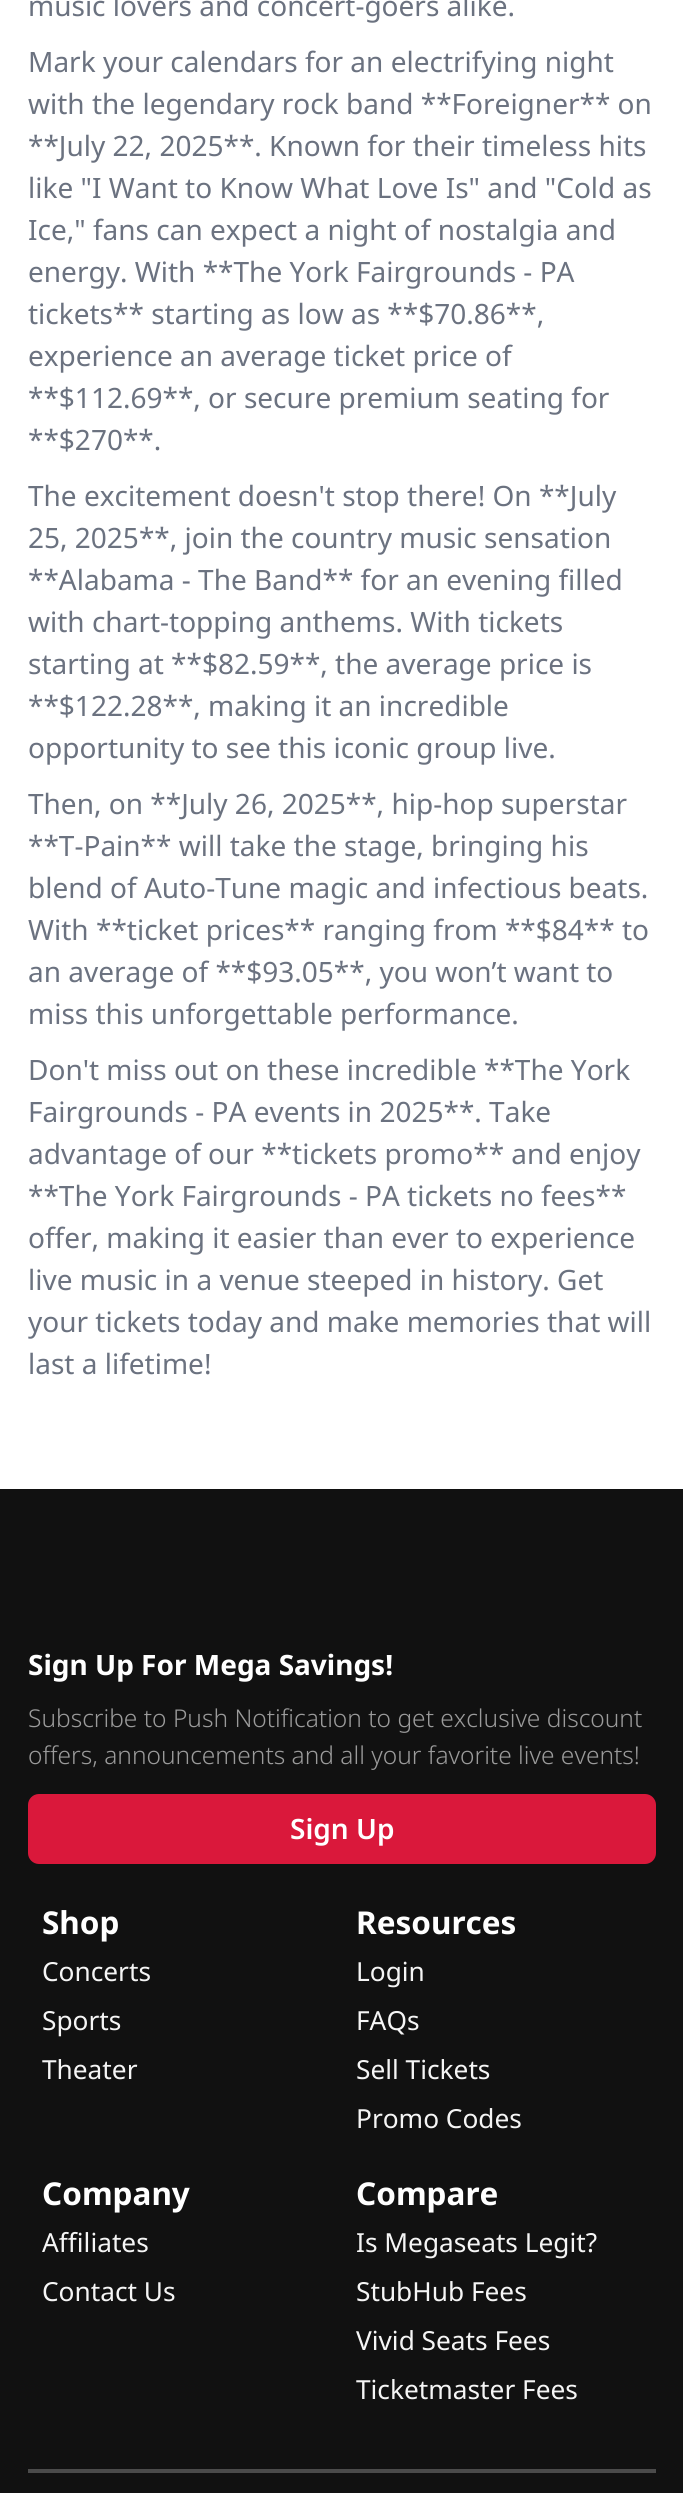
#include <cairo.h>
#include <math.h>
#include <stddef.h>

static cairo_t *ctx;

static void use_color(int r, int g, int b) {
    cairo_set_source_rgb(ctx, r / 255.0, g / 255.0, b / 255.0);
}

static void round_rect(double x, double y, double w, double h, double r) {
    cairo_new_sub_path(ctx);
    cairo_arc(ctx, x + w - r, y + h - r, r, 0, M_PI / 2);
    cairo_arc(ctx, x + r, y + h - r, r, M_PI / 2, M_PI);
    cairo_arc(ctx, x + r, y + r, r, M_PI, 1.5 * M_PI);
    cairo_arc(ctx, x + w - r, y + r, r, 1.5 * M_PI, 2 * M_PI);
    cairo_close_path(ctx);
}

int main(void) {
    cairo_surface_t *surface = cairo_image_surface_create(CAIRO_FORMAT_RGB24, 683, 2493);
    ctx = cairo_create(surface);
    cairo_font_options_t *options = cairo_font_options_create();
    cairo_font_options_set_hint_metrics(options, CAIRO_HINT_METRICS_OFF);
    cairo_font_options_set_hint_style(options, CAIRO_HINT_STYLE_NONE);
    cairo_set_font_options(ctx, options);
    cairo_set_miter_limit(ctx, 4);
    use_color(255, 255, 255);
    cairo_paint(ctx);
    cairo_select_font_face(ctx, "Noto Sans", CAIRO_FONT_SLANT_NORMAL, CAIRO_FONT_WEIGHT_NORMAL);
    cairo_set_font_size(ctx, 28);
    use_color(107, 114, 128);
    cairo_move_to(ctx, 28, 16);
    cairo_show_text(ctx, "music lovers and concert-goers alike.");
    cairo_move_to(ctx, 28, 72);
    cairo_show_text(ctx, "Mark your calendars for an electrifying night");
    cairo_move_to(ctx, 28, 114);
    cairo_show_text(ctx, "with the legendary rock band **Foreigner** on");
    cairo_move_to(ctx, 28, 156);
    cairo_show_text(ctx, "**July 22, 2025**. Known for their timeless hits");
    cairo_move_to(ctx, 28, 198);
    cairo_show_text(ctx, "like \"I Want to Know What Love Is\" and \"Cold as");
    cairo_move_to(ctx, 28, 240);
    cairo_show_text(ctx, "Ice,\" fans can expect a night of nostalgia and");
    cairo_move_to(ctx, 28, 282);
    cairo_show_text(ctx, "energy. With **The York Fairgrounds - PA");
    cairo_move_to(ctx, 28, 324);
    cairo_show_text(ctx, "tickets** starting as low as **$70.86**,");
    cairo_move_to(ctx, 28, 366);
    cairo_show_text(ctx, "experience an average ticket price of");
    cairo_move_to(ctx, 28, 408);
    cairo_show_text(ctx, "**$112.69**, or secure premium seating for");
    cairo_move_to(ctx, 28, 450);
    cairo_show_text(ctx, "**$270**.");
    cairo_move_to(ctx, 28, 506);
    cairo_show_text(ctx, "The excitement doesn't stop there! On **July");
    cairo_move_to(ctx, 28, 548);
    cairo_show_text(ctx, "25, 2025**, join the country music sensation");
    cairo_move_to(ctx, 28, 590);
    cairo_show_text(ctx, "**Alabama - The Band** for an evening filled");
    cairo_move_to(ctx, 28, 632);
    cairo_show_text(ctx, "with chart-topping anthems. With tickets");
    cairo_move_to(ctx, 28, 674);
    cairo_show_text(ctx, "starting at **$82.59**, the average price is");
    cairo_move_to(ctx, 28, 716);
    cairo_show_text(ctx, "**$122.28**, making it an incredible");
    cairo_move_to(ctx, 28, 758);
    cairo_show_text(ctx, "opportunity to see this iconic group live.");
    cairo_move_to(ctx, 28, 814);
    cairo_show_text(ctx, "Then, on **July 26, 2025**, hip-hop superstar");
    cairo_move_to(ctx, 28, 856);
    cairo_show_text(ctx, "**T-Pain** will take the stage, bringing his");
    cairo_move_to(ctx, 28, 898);
    cairo_show_text(ctx, "blend of Auto-Tune magic and infectious beats.");
    cairo_move_to(ctx, 28, 940);
    cairo_show_text(ctx, "With **ticket prices** ranging from **$84** to");
    cairo_move_to(ctx, 28, 982);
    cairo_show_text(ctx, "an average of **$93.05**, you won’t want to");
    cairo_move_to(ctx, 28, 1024);
    cairo_show_text(ctx, "miss this unforgettable performance.");
    cairo_move_to(ctx, 28, 1080);
    cairo_show_text(ctx, "Don't miss out on these incredible **The York");
    cairo_move_to(ctx, 28, 1122);
    cairo_show_text(ctx, "Fairgrounds - PA events in 2025**. Take");
    cairo_move_to(ctx, 28, 1164);
    cairo_show_text(ctx, "advantage of our **tickets promo** and enjoy");
    cairo_move_to(ctx, 28, 1206);
    cairo_show_text(ctx, "**The York Fairgrounds - PA tickets no fees**");
    cairo_move_to(ctx, 28, 1248);
    cairo_show_text(ctx, "offer, making it easier than ever to experience");
    cairo_move_to(ctx, 28, 1290);
    cairo_show_text(ctx, "live music in a venue steeped in history. Get");
    cairo_move_to(ctx, 28, 1332);
    cairo_show_text(ctx, "your tickets today and make memories that will");
    cairo_move_to(ctx, 28, 1374);
    cairo_show_text(ctx, "last a lifetime!");
    use_color(17, 17, 17);
    cairo_rectangle(ctx, 0, 1489, 683, 1004);
    cairo_fill(ctx);
    use_color(75, 75, 75);
    cairo_rectangle(ctx, 28, 2469, 628, 4);
    cairo_fill(ctx);
    cairo_select_font_face(ctx, "Noto Sans", CAIRO_FONT_SLANT_NORMAL, CAIRO_FONT_WEIGHT_BOLD);
    use_color(255, 255, 255);
    cairo_move_to(ctx, 28, 1675);
    cairo_show_text(ctx, "Sign Up For Mega Savings!");
    cairo_select_font_face(ctx, "Noto Sans Light", CAIRO_FONT_SLANT_NORMAL, CAIRO_FONT_WEIGHT_NORMAL);
    cairo_set_font_size(ctx, 24.5);
    use_color(155, 155, 155);
    cairo_move_to(ctx, 28, 1727);
    cairo_show_text(ctx, "Subscribe to Push Notification to get exclusive discount");
    cairo_move_to(ctx, 28, 1764);
    cairo_show_text(ctx, "offers, announcements and all your favorite live events!");
    use_color(218, 24, 59);
    round_rect(28, 1794, 628, 70, 11);
    cairo_fill(ctx);
    cairo_select_font_face(ctx, "Noto Sans SemiBold", CAIRO_FONT_SLANT_NORMAL, CAIRO_FONT_WEIGHT_NORMAL);
    cairo_set_font_size(ctx, 28);
    use_color(255, 255, 255);
    cairo_move_to(ctx, 290, 1839);
    cairo_show_text(ctx, "Sign Up");
    cairo_select_font_face(ctx, "Noto Sans", CAIRO_FONT_SLANT_NORMAL, CAIRO_FONT_WEIGHT_BOLD);
    cairo_set_font_size(ctx, 31.5);
    cairo_move_to(ctx, 42, 1934);
    cairo_show_text(ctx, "Shop");
    cairo_select_font_face(ctx, "Noto Sans", CAIRO_FONT_SLANT_NORMAL, CAIRO_FONT_WEIGHT_NORMAL);
    cairo_set_font_size(ctx, 26.25);
    use_color(245, 245, 245);
    cairo_move_to(ctx, 42, 1981);
    cairo_show_text(ctx, "Concerts");
    cairo_move_to(ctx, 42, 2030);
    cairo_show_text(ctx, "Sports");
    cairo_move_to(ctx, 42, 2079);
    cairo_show_text(ctx, "Theater");
    cairo_select_font_face(ctx, "Noto Sans", CAIRO_FONT_SLANT_NORMAL, CAIRO_FONT_WEIGHT_BOLD);
    cairo_set_font_size(ctx, 31.5);
    use_color(255, 255, 255);
    cairo_move_to(ctx, 356, 1934);
    cairo_show_text(ctx, "Resources");
    cairo_select_font_face(ctx, "Noto Sans", CAIRO_FONT_SLANT_NORMAL, CAIRO_FONT_WEIGHT_NORMAL);
    cairo_set_font_size(ctx, 26.25);
    use_color(245, 245, 245);
    cairo_move_to(ctx, 356, 1981);
    cairo_show_text(ctx, "Login");
    cairo_move_to(ctx, 356, 2030);
    cairo_show_text(ctx, "FAQs");
    cairo_move_to(ctx, 356, 2079);
    cairo_show_text(ctx, "Sell Tickets");
    cairo_move_to(ctx, 356, 2128);
    cairo_show_text(ctx, "Promo Codes");
    cairo_select_font_face(ctx, "Noto Sans", CAIRO_FONT_SLANT_NORMAL, CAIRO_FONT_WEIGHT_BOLD);
    cairo_set_font_size(ctx, 31.5);
    use_color(255, 255, 255);
    cairo_move_to(ctx, 42, 2205);
    cairo_show_text(ctx, "Company");
    cairo_select_font_face(ctx, "Noto Sans", CAIRO_FONT_SLANT_NORMAL, CAIRO_FONT_WEIGHT_NORMAL);
    cairo_set_font_size(ctx, 26.25);
    use_color(245, 245, 245);
    cairo_move_to(ctx, 42, 2252);
    cairo_show_text(ctx, "Affiliates");
    cairo_move_to(ctx, 42, 2301);
    cairo_show_text(ctx, "Contact Us");
    cairo_select_font_face(ctx, "Noto Sans", CAIRO_FONT_SLANT_NORMAL, CAIRO_FONT_WEIGHT_BOLD);
    cairo_set_font_size(ctx, 31.5);
    use_color(255, 255, 255);
    cairo_move_to(ctx, 356, 2205);
    cairo_show_text(ctx, "Compare");
    cairo_select_font_face(ctx, "Noto Sans", CAIRO_FONT_SLANT_NORMAL, CAIRO_FONT_WEIGHT_NORMAL);
    cairo_set_font_size(ctx, 26.25);
    use_color(245, 245, 245);
    cairo_move_to(ctx, 356, 2252);
    cairo_show_text(ctx, "Is Megaseats Legit?");
    cairo_move_to(ctx, 356, 2301);
    cairo_show_text(ctx, "StubHub Fees");
    cairo_move_to(ctx, 356, 2350);
    cairo_show_text(ctx, "Vivid Seats Fees");
    cairo_move_to(ctx, 356, 2399);
    cairo_show_text(ctx, "Ticketmaster Fees");
    cairo_surface_write_to_png(surface, "result.png");
    cairo_font_options_destroy(options);
    cairo_destroy(ctx);
    cairo_surface_destroy(surface);
    return 0;
}
